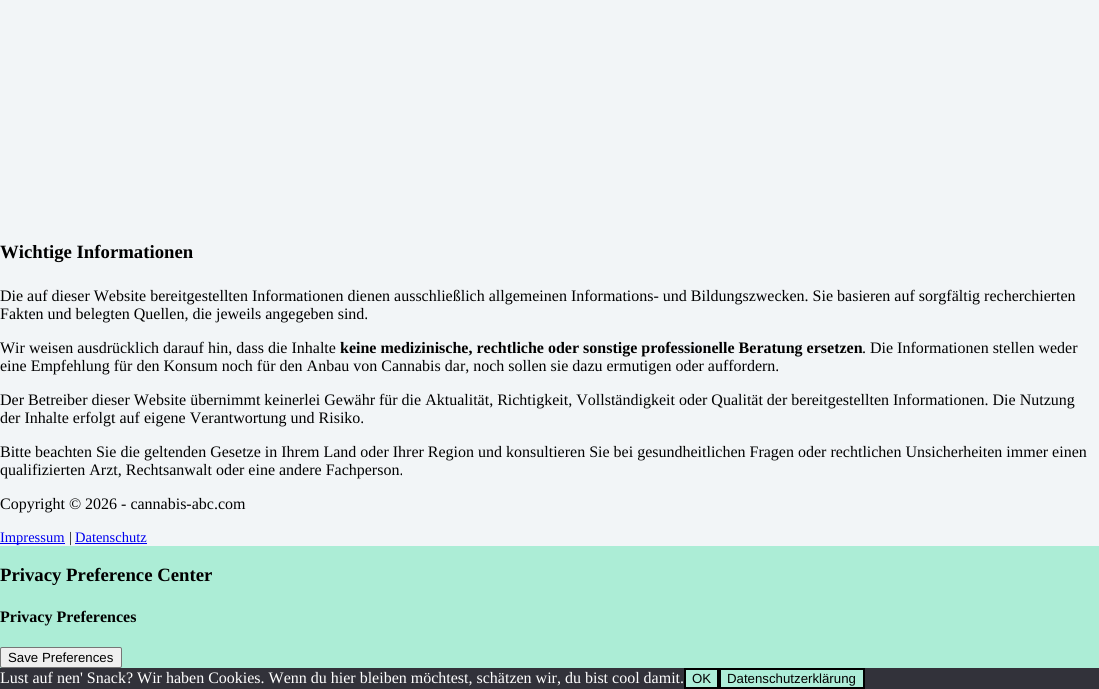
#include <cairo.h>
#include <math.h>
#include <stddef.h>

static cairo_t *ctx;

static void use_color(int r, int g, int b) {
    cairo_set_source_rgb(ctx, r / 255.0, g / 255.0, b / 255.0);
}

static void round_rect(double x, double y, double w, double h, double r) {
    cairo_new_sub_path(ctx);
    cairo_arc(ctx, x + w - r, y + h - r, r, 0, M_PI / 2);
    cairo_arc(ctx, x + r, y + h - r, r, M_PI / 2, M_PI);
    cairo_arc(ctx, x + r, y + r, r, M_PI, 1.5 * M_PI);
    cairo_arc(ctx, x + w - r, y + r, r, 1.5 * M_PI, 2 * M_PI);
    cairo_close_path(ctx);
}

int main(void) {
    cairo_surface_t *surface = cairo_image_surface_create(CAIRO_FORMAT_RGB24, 1099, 689);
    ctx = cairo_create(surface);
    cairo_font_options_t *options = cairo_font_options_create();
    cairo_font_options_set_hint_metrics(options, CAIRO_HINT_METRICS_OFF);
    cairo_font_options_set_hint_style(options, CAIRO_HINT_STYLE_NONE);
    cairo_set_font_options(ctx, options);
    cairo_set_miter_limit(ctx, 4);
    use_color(172, 237, 214);
    cairo_paint(ctx);
    use_color(242, 245, 247);
    cairo_rectangle(ctx, 0, 0, 1099, 546);
    cairo_fill(ctx);
    cairo_select_font_face(ctx, "Liberation Serif", CAIRO_FONT_SLANT_NORMAL, CAIRO_FONT_WEIGHT_BOLD);
    cairo_set_font_size(ctx, 18.75);
    use_color(0, 0, 0);
    cairo_move_to(ctx, 0, 258);
    cairo_show_text(ctx, "Wichtige Informationen");
    cairo_select_font_face(ctx, "Liberation Serif", CAIRO_FONT_SLANT_NORMAL, CAIRO_FONT_WEIGHT_NORMAL);
    cairo_set_font_size(ctx, 16);
    cairo_move_to(ctx, 0, 301);
    cairo_show_text(ctx, "Die auf dieser Website bereitgestellten Informationen dienen ausschließlich allgemeinen Informations- und Bildungszwecken. Sie basieren auf sorgfältig recherchierten");
    cairo_move_to(ctx, 0, 319);
    cairo_show_text(ctx, "Fakten und belegten Quellen, die jeweils angegeben sind.");
    cairo_move_to(ctx, 0, 353);
    cairo_show_text(ctx, "Wir weisen ausdrücklich darauf hin, dass die Inhalte");
    cairo_select_font_face(ctx, "Liberation Serif", CAIRO_FONT_SLANT_NORMAL, CAIRO_FONT_WEIGHT_BOLD);
    cairo_move_to(ctx, 340, 353);
    cairo_show_text(ctx, "keine medizinische, rechtliche oder sonstige professionelle Beratung ersetzen");
    cairo_select_font_face(ctx, "Liberation Serif", CAIRO_FONT_SLANT_NORMAL, CAIRO_FONT_WEIGHT_NORMAL);
    cairo_move_to(ctx, 862, 353);
    cairo_show_text(ctx, ". Die Informationen stellen weder");
    cairo_move_to(ctx, 0, 371);
    cairo_show_text(ctx, "eine Empfehlung für den Konsum noch für den Anbau von Cannabis dar, noch sollen sie dazu ermutigen oder auffordern.");
    cairo_move_to(ctx, 0, 405);
    cairo_show_text(ctx, "Der Betreiber dieser Website übernimmt keinerlei Gewähr für die Aktualität, Richtigkeit, Vollständigkeit oder Qualität der bereitgestellten Informationen. Die Nutzung");
    cairo_move_to(ctx, 0, 423);
    cairo_show_text(ctx, "der Inhalte erfolgt auf eigene Verantwortung und Risiko.");
    cairo_move_to(ctx, 0, 457);
    cairo_show_text(ctx, "Bitte beachten Sie die geltenden Gesetze in Ihrem Land oder Ihrer Region und konsultieren Sie bei gesundheitlichen Fragen oder rechtlichen Unsicherheiten immer einen");
    cairo_move_to(ctx, 0, 475);
    cairo_show_text(ctx, "qualifizierten Arzt, Rechtsanwalt oder eine andere Fachperson.");
    cairo_move_to(ctx, 0, 509);
    cairo_show_text(ctx, "Copyright © 2026 - cannabis-abc.com");
    use_color(0, 0, 238);
    cairo_rectangle(ctx, 0, 543, 65, 1);
    cairo_fill(ctx);
    cairo_set_font_size(ctx, 14.5);
    cairo_move_to(ctx, 0, 542);
    cairo_show_text(ctx, "Impressum");
    use_color(0, 0, 0);
    cairo_move_to(ctx, 69, 542);
    cairo_show_text(ctx, "|");
    use_color(0, 0, 238);
    cairo_move_to(ctx, 75, 542);
    cairo_show_text(ctx, "Datenschutz");
    cairo_rectangle(ctx, 75, 543, 72, 1);
    cairo_fill(ctx);
    cairo_select_font_face(ctx, "Liberation Serif", CAIRO_FONT_SLANT_NORMAL, CAIRO_FONT_WEIGHT_BOLD);
    cairo_set_font_size(ctx, 18.75);
    use_color(0, 0, 0);
    cairo_move_to(ctx, 0, 581);
    cairo_show_text(ctx, "Privacy Preference Center");
    cairo_set_font_size(ctx, 16);
    cairo_move_to(ctx, 0, 622);
    cairo_show_text(ctx, "Privacy Preferences");
    use_color(239, 239, 239);
    round_rect(0.5, 647.5, 121, 20, 1.5);
    cairo_fill_preserve(ctx);
    use_color(118, 118, 118);
    cairo_set_line_width(ctx, 1);
    cairo_stroke(ctx);
    cairo_select_font_face(ctx, "Liberation Sans", CAIRO_FONT_SLANT_NORMAL, CAIRO_FONT_WEIGHT_NORMAL);
    cairo_set_font_size(ctx, 13.25);
    use_color(0, 0, 0);
    cairo_move_to(ctx, 8, 662);
    cairo_show_text(ctx, "Save Preferences");
    use_color(50, 50, 58);
    cairo_rectangle(ctx, 0, 668, 1099, 21);
    cairo_fill(ctx);
    cairo_select_font_face(ctx, "Liberation Serif", CAIRO_FONT_SLANT_NORMAL, CAIRO_FONT_WEIGHT_NORMAL);
    cairo_set_font_size(ctx, 16);
    use_color(255, 255, 255);
    cairo_move_to(ctx, 0, 683);
    cairo_show_text(ctx, "Lust auf nen' Snack? Wir haben Cookies. Wenn du hier bleiben möchtest, schätzen wir, du bist cool damit.");
    use_color(173, 237, 216);
    cairo_rectangle(ctx, 685, 669, 33, 19);
    cairo_fill_preserve(ctx);
    use_color(0, 0, 0);
    cairo_set_line_width(ctx, 2);
    cairo_stroke(ctx);
    cairo_select_font_face(ctx, "Liberation Sans", CAIRO_FONT_SLANT_NORMAL, CAIRO_FONT_WEIGHT_NORMAL);
    cairo_set_font_size(ctx, 13.25);
    cairo_move_to(ctx, 692, 683);
    cairo_show_text(ctx, "OK");
    use_color(173, 237, 216);
    cairo_rectangle(ctx, 720, 669, 144, 19);
    cairo_fill_preserve(ctx);
    use_color(0, 0, 0);
    cairo_stroke(ctx);
    cairo_move_to(ctx, 727, 683);
    cairo_show_text(ctx, "Datenschutzerklärung");
    cairo_surface_write_to_png(surface, "result.png");
    cairo_font_options_destroy(options);
    cairo_destroy(ctx);
    cairo_surface_destroy(surface);
    return 0;
}
